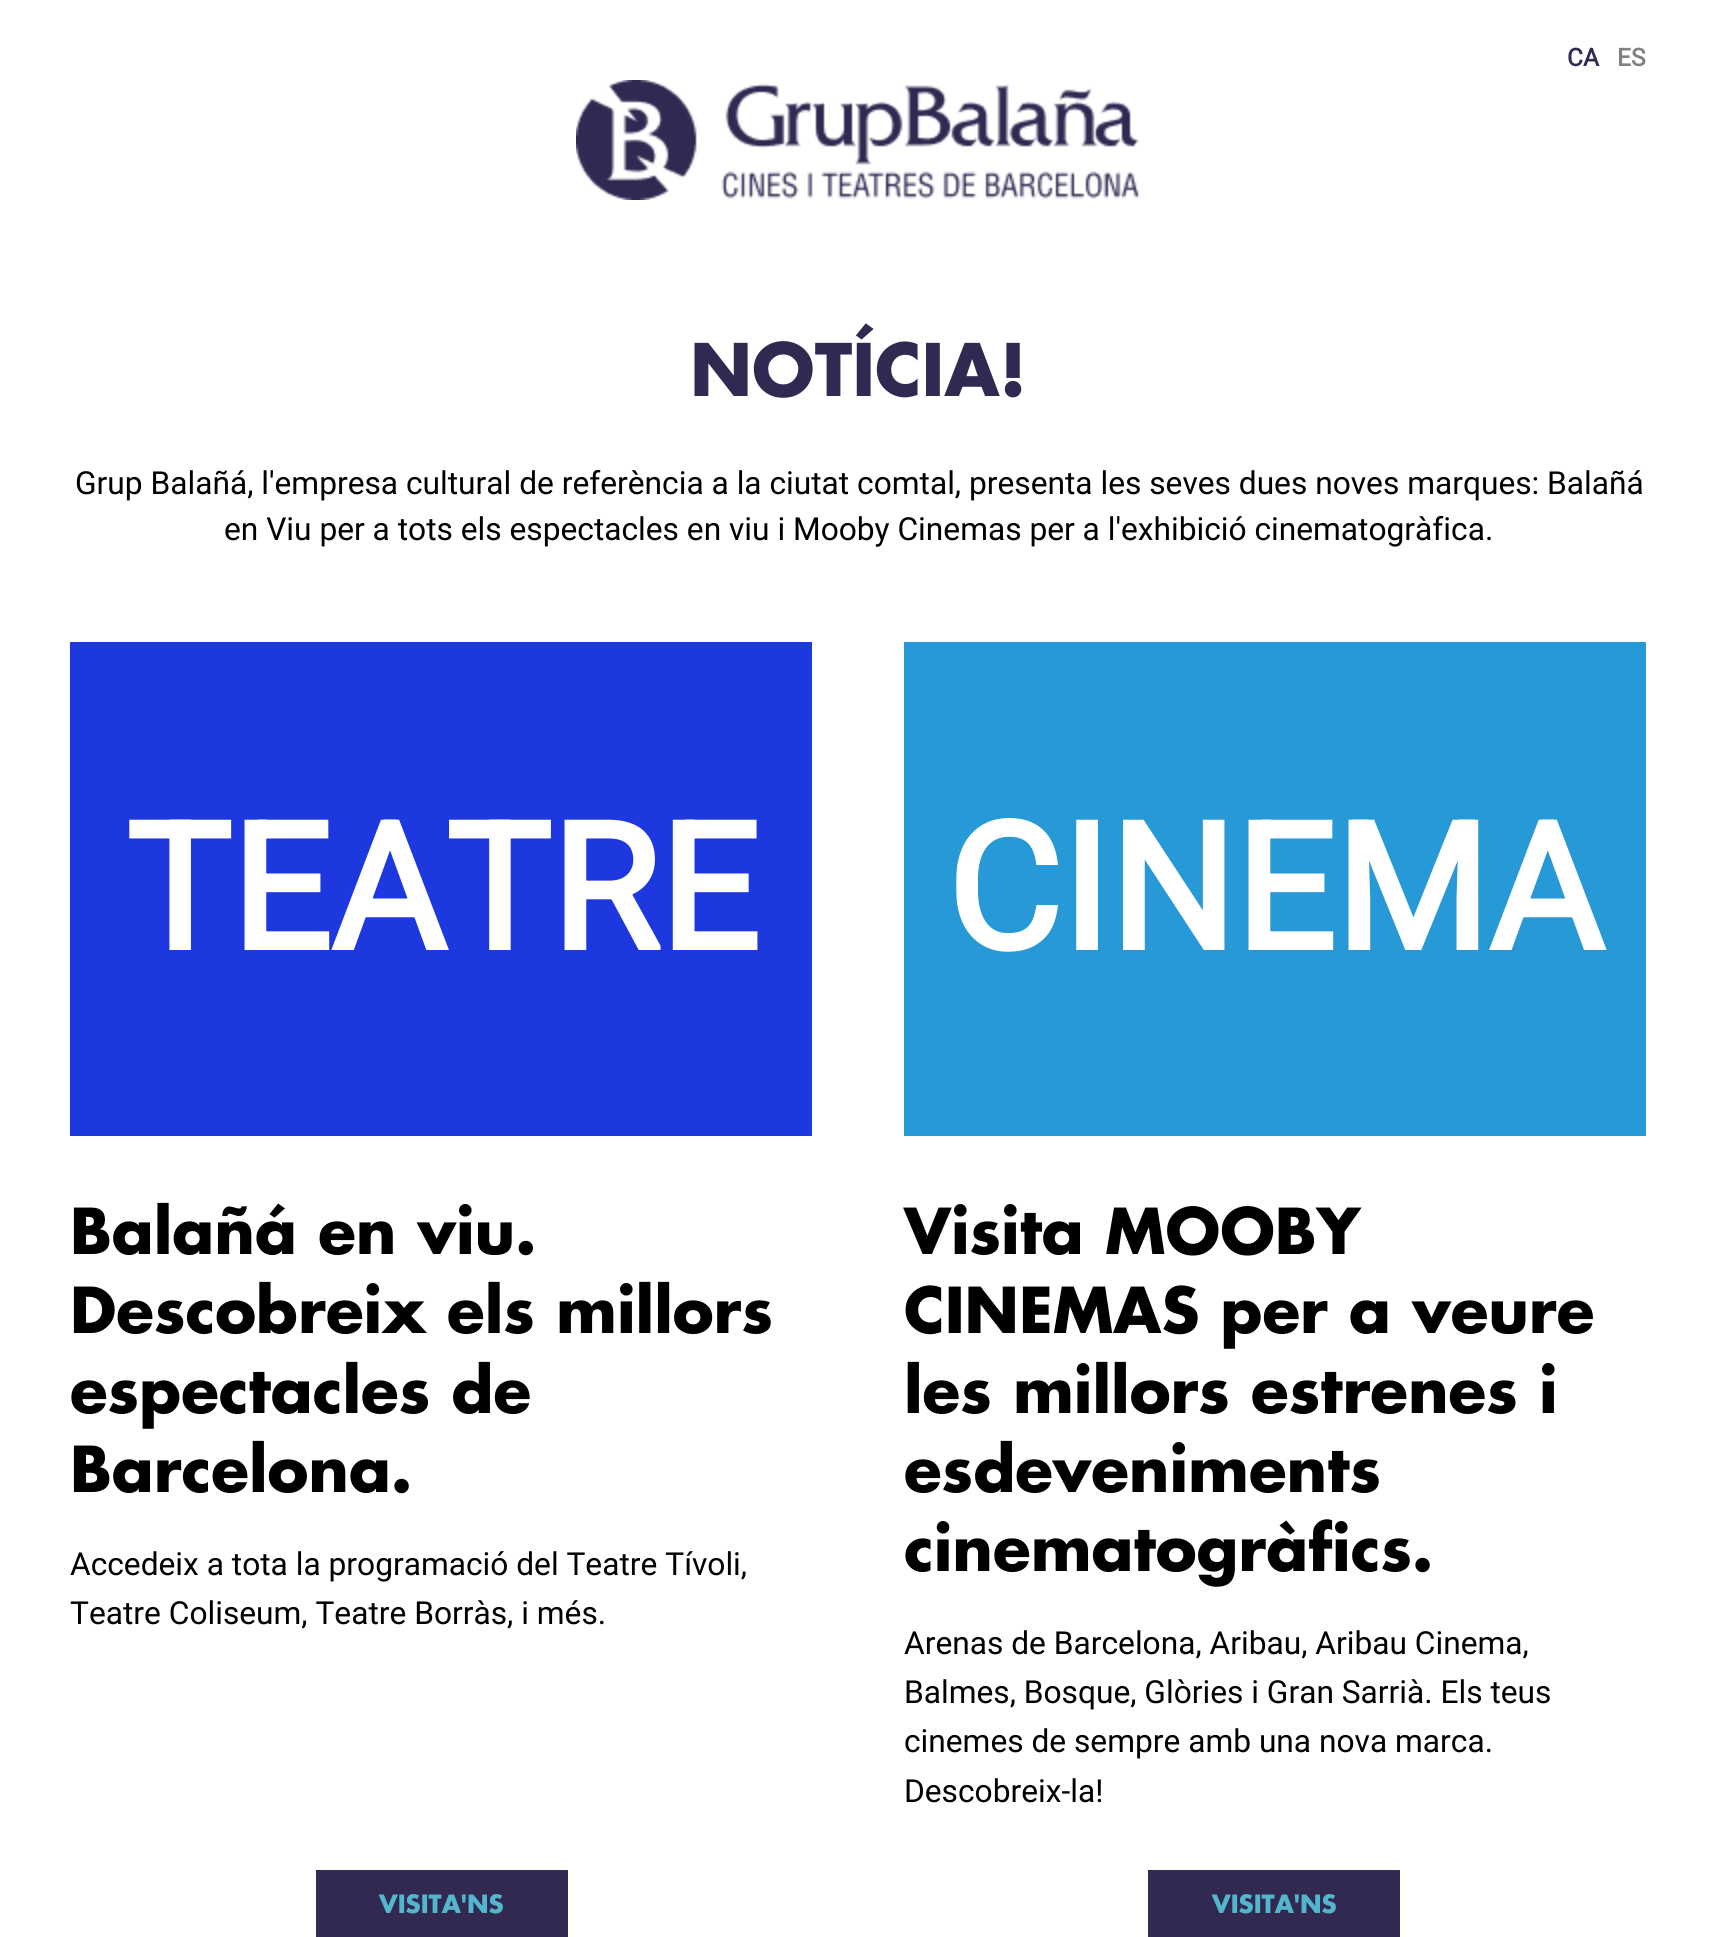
#include <cairo.h>
#include <math.h>
#include <stddef.h>

static cairo_t *ctx;

static void use_color(int r, int g, int b) {
    cairo_set_source_rgb(ctx, r / 255.0, g / 255.0, b / 255.0);
}

static void picture(const char *path, double x, double y, double w, double h) {
    cairo_surface_t *image = cairo_image_surface_create_from_png(path);
    cairo_save(ctx);
    cairo_set_source_surface(ctx, image, x, y);
    cairo_rectangle(ctx, x, y, w, h);
    cairo_fill(ctx);
    cairo_restore(ctx);
    cairo_surface_destroy(image);
}

int main(void) {
    cairo_surface_t *surface = cairo_image_surface_create(CAIRO_FORMAT_RGB24, 1716, 1937);
    ctx = cairo_create(surface);
    cairo_font_options_t *options = cairo_font_options_create();
    cairo_font_options_set_hint_metrics(options, CAIRO_HINT_METRICS_OFF);
    cairo_font_options_set_hint_style(options, CAIRO_HINT_STYLE_NONE);
    cairo_set_font_options(ctx, options);
    cairo_set_miter_limit(ctx, 4);
    use_color(255, 255, 255);
    cairo_paint(ctx);
    cairo_select_font_face(ctx, "Roboto", CAIRO_FONT_SLANT_NORMAL, CAIRO_FONT_WEIGHT_BOLD);
    cairo_set_font_size(ctx, 24.5);
    use_color(50, 41, 82);
    cairo_move_to(ctx, 1567, 66);
    cairo_show_text(ctx, "CA");
    use_color(128, 128, 128);
    cairo_move_to(ctx, 1617, 66);
    cairo_show_text(ctx, "ES");
    picture("img1.png", 576, 80, 564, 120);
    cairo_select_font_face(ctx, "Futura", CAIRO_FONT_SLANT_NORMAL, CAIRO_FONT_WEIGHT_BOLD);
    cairo_set_font_size(ctx, 70.5);
    use_color(50, 41, 82);
    cairo_move_to(ctx, 690, 396);
    cairo_show_text(ctx, "NOTÍCIA!");
    cairo_select_font_face(ctx, "Roboto", CAIRO_FONT_SLANT_NORMAL, CAIRO_FONT_WEIGHT_NORMAL);
    cairo_set_font_size(ctx, 31.7);
    use_color(0, 0, 0);
    cairo_move_to(ctx, 75, 494);
    cairo_show_text(ctx, "Grup Balañá, l'empresa cultural de referència a la ciutat comtal, presenta les seves dues noves marques: Balañá");
    cairo_move_to(ctx, 224, 540);
    cairo_show_text(ctx, "en Viu per a tots els espectacles en viu i Mooby Cinemas per a l'exhibició cinematogràfica.");
    use_color(30, 56, 223);
    cairo_rectangle(ctx, 70, 642, 742, 494);
    cairo_fill(ctx);
    cairo_select_font_face(ctx, "Roboto", CAIRO_FONT_SLANT_NORMAL, CAIRO_FONT_WEIGHT_BOLD);
    cairo_set_font_size(ctx, 176);
    use_color(255, 255, 255);
    cairo_move_to(ctx, 125, 950);
    cairo_show_text(ctx, "TEATRE");
    cairo_select_font_face(ctx, "Futura", CAIRO_FONT_SLANT_NORMAL, CAIRO_FONT_WEIGHT_BOLD);
    cairo_set_font_size(ctx, 61.6);
    use_color(0, 0, 0);
    cairo_move_to(ctx, 70, 1254);
    cairo_show_text(ctx, "Balañá en viu.");
    cairo_move_to(ctx, 70, 1333);
    cairo_show_text(ctx, "Descobreix els millors");
    cairo_move_to(ctx, 70, 1413);
    cairo_show_text(ctx, "espectacles de");
    cairo_move_to(ctx, 70, 1492);
    cairo_show_text(ctx, "Barcelona.");
    cairo_select_font_face(ctx, "Roboto", CAIRO_FONT_SLANT_NORMAL, CAIRO_FONT_WEIGHT_NORMAL);
    cairo_set_font_size(ctx, 31.7);
    cairo_move_to(ctx, 70, 1575);
    cairo_show_text(ctx, "Accedeix a tota la programació del Teatre Tívoli,");
    cairo_move_to(ctx, 70, 1624);
    cairo_show_text(ctx, "Teatre Coliseum, Teatre Borràs, i més.");
    use_color(50, 41, 82);
    cairo_rectangle(ctx, 316, 1870, 252, 67);
    cairo_fill(ctx);
    cairo_select_font_face(ctx, "Futura", CAIRO_FONT_SLANT_NORMAL, CAIRO_FONT_WEIGHT_BOLD);
    cairo_set_font_size(ctx, 24.5);
    use_color(82, 183, 204);
    cairo_move_to(ctx, 379, 1913);
    cairo_show_text(ctx, "VISITA'NS");
    use_color(39, 153, 215);
    cairo_rectangle(ctx, 904, 642, 742, 494);
    cairo_fill(ctx);
    cairo_select_font_face(ctx, "Roboto", CAIRO_FONT_SLANT_NORMAL, CAIRO_FONT_WEIGHT_BOLD);
    cairo_set_font_size(ctx, 176);
    use_color(255, 255, 255);
    cairo_move_to(ctx, 946, 950);
    cairo_show_text(ctx, "CINEMA");
    cairo_select_font_face(ctx, "Futura", CAIRO_FONT_SLANT_NORMAL, CAIRO_FONT_WEIGHT_BOLD);
    cairo_set_font_size(ctx, 61.6);
    use_color(0, 0, 0);
    cairo_move_to(ctx, 904, 1254);
    cairo_show_text(ctx, "Visita MOOBY");
    cairo_move_to(ctx, 904, 1333);
    cairo_show_text(ctx, "CINEMAS per a veure");
    cairo_move_to(ctx, 904, 1413);
    cairo_show_text(ctx, "les millors estrenes i");
    cairo_move_to(ctx, 904, 1492);
    cairo_show_text(ctx, "esdeveniments");
    cairo_move_to(ctx, 904, 1571);
    cairo_show_text(ctx, "cinematogràfics.");
    cairo_select_font_face(ctx, "Roboto", CAIRO_FONT_SLANT_NORMAL, CAIRO_FONT_WEIGHT_NORMAL);
    cairo_set_font_size(ctx, 31.7);
    cairo_move_to(ctx, 904, 1654);
    cairo_show_text(ctx, "Arenas de Barcelona, Aribau, Aribau Cinema,");
    cairo_move_to(ctx, 904, 1703);
    cairo_show_text(ctx, "Balmes, Bosque, Glòries i Gran Sarrià. Els teus");
    cairo_move_to(ctx, 904, 1752);
    cairo_show_text(ctx, "cinemes de sempre amb una nova marca.");
    cairo_move_to(ctx, 904, 1802);
    cairo_show_text(ctx, "Descobreix-la!");
    use_color(50, 41, 82);
    cairo_rectangle(ctx, 1148, 1870, 252, 67);
    cairo_fill(ctx);
    cairo_select_font_face(ctx, "Futura", CAIRO_FONT_SLANT_NORMAL, CAIRO_FONT_WEIGHT_BOLD);
    cairo_set_font_size(ctx, 24.5);
    use_color(82, 183, 204);
    cairo_move_to(ctx, 1212, 1913);
    cairo_show_text(ctx, "VISITA'NS");
    cairo_surface_write_to_png(surface, "result.png");
    cairo_font_options_destroy(options);
    cairo_destroy(ctx);
    cairo_surface_destroy(surface);
    return 0;
}
